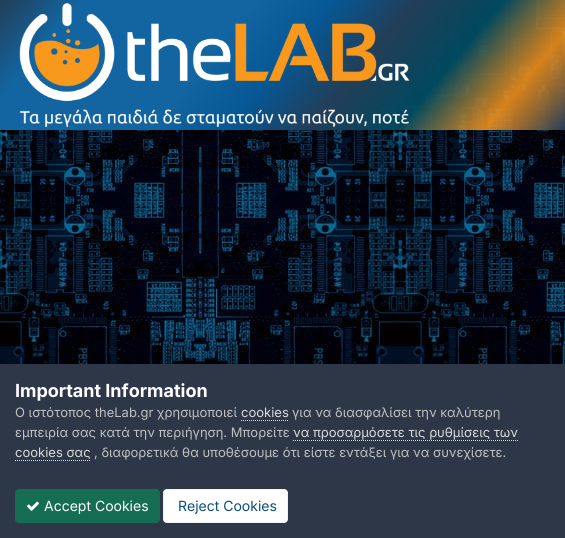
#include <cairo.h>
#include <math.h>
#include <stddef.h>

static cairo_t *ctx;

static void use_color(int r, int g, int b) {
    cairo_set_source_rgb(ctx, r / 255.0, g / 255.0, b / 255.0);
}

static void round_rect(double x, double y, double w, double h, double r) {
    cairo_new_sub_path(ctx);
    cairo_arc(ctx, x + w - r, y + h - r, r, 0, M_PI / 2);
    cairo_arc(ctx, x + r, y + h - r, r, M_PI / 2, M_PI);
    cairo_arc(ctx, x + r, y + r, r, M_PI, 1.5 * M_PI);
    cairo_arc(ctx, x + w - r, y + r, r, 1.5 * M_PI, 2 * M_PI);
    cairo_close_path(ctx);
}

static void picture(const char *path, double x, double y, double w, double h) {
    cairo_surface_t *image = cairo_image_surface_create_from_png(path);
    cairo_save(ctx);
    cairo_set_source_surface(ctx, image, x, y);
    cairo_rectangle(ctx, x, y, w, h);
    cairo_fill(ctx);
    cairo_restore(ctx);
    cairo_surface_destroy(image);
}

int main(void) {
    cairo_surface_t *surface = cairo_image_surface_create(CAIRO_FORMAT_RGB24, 565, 538);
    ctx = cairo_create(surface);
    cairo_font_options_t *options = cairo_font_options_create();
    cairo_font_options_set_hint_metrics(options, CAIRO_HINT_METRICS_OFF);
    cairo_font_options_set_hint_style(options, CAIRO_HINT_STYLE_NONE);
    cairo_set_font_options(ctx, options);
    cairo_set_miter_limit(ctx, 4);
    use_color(255, 255, 255);
    cairo_paint(ctx);
    picture("img1.png", 0, 0, 565, 364);
    picture("img2.png", 19, 3, 391, 124);
    use_color(45, 55, 72);
    cairo_rectangle(ctx, 0, 364, 565, 174);
    cairo_fill(ctx);
    cairo_select_font_face(ctx, "Inter", CAIRO_FONT_SLANT_NORMAL, CAIRO_FONT_WEIGHT_BOLD);
    cairo_set_font_size(ctx, 18);
    use_color(255, 255, 255);
    cairo_move_to(ctx, 15, 397);
    cairo_show_text(ctx, "Important Information");
    cairo_select_font_face(ctx, "Inter", CAIRO_FONT_SLANT_NORMAL, CAIRO_FONT_WEIGHT_NORMAL);
    cairo_set_font_size(ctx, 13);
    use_color(192, 192, 192);
    cairo_move_to(ctx, 15, 417);
    cairo_show_text(ctx, "Ο ιστότοπος theLab.gr χρησιμοποιεί");
    use_color(218, 218, 218);
    cairo_move_to(ctx, 241, 417);
    cairo_show_text(ctx, "cookies");
    cairo_new_path(ctx);
    cairo_move_to(ctx, 241, 420.5);
    cairo_line_to(ctx, 288, 420.5);
    cairo_set_line_width(ctx, 1);
    cairo_set_dash(ctx, (double[]){1, 1}, 2, 0);
    cairo_stroke(ctx);
    use_color(192, 192, 192);
    cairo_move_to(ctx, 292, 417);
    cairo_show_text(ctx, "για να διασφαλίσει την καλύτερη");
    cairo_move_to(ctx, 15, 437);
    cairo_show_text(ctx, "εμπειρία σας κατά την περιήγηση. Μπορείτε");
    use_color(218, 218, 218);
    cairo_move_to(ctx, 293, 437);
    cairo_show_text(ctx, "να προσαρμόσετε τις ρυθμίσεις των");
    cairo_new_path(ctx);
    cairo_move_to(ctx, 293, 440.5);
    cairo_line_to(ctx, 518, 440.5);
    cairo_stroke(ctx);
    cairo_move_to(ctx, 15, 457);
    cairo_show_text(ctx, "cookies σας");
    cairo_new_path(ctx);
    cairo_move_to(ctx, 15, 460.5);
    cairo_line_to(ctx, 91, 460.5);
    cairo_stroke(ctx);
    use_color(192, 192, 192);
    cairo_move_to(ctx, 94, 457);
    cairo_show_text(ctx, ", διαφορετικά θα υποθέσουμε ότι είστε εντάξει για να συνεχίσετε.");
    use_color(21, 110, 81);
    round_rect(15, 489, 145, 34, 4);
    cairo_fill(ctx);
    picture("img3.png", 27, 501, 12, 10);
    cairo_set_font_size(ctx, 14);
    use_color(255, 255, 255);
    cairo_move_to(ctx, 44, 511);
    cairo_show_text(ctx, "Accept Cookies");
    round_rect(163, 489, 125, 34, 4);
    cairo_fill(ctx);
    round_rect(163.5, 489.5, 124, 33, 3.5);
    cairo_set_source_rgba(ctx, 0.055, 0.298, 0.475, 0.07);
    cairo_set_dash(ctx, NULL, 0, 0);
    cairo_stroke(ctx);
    use_color(14, 76, 121);
    cairo_move_to(ctx, 178, 511);
    cairo_show_text(ctx, "Reject Cookies");
    cairo_surface_write_to_png(surface, "result.png");
    cairo_font_options_destroy(options);
    cairo_destroy(ctx);
    cairo_surface_destroy(surface);
    return 0;
}
